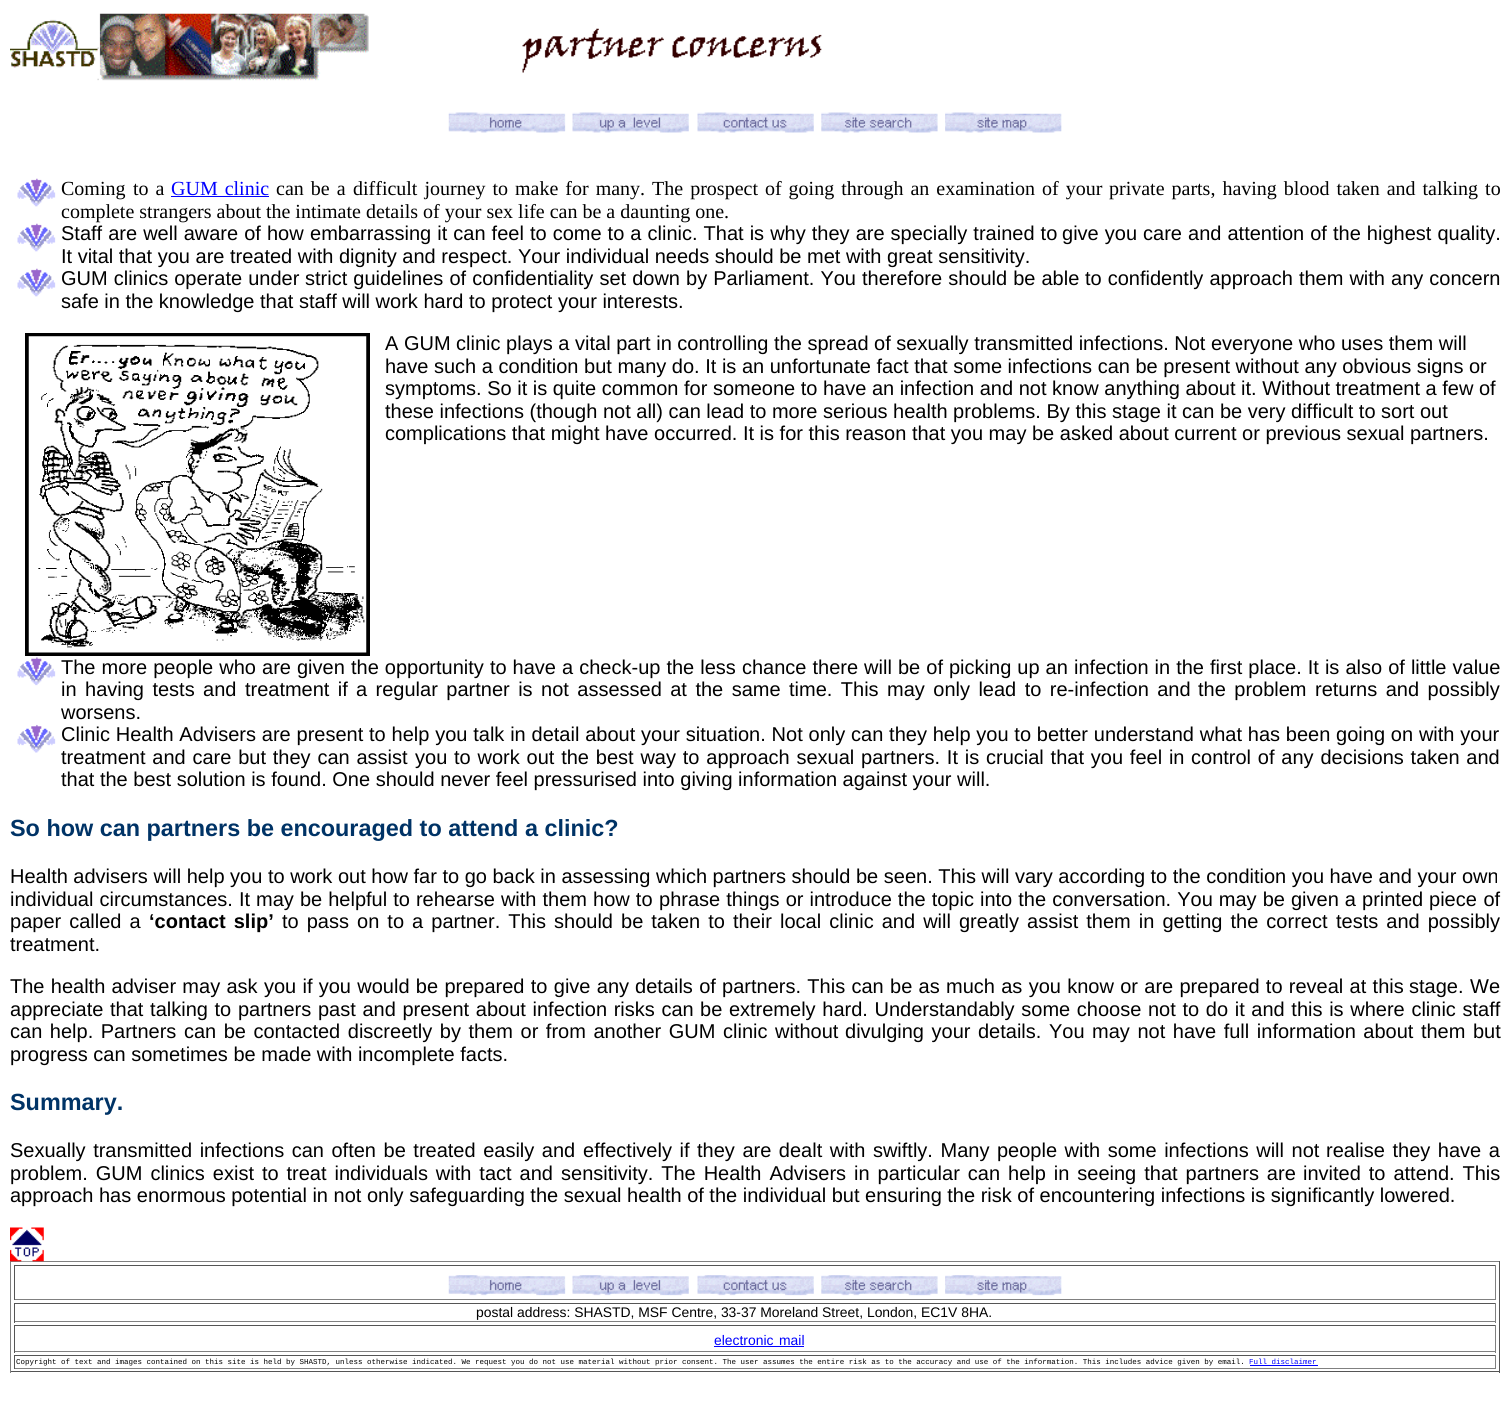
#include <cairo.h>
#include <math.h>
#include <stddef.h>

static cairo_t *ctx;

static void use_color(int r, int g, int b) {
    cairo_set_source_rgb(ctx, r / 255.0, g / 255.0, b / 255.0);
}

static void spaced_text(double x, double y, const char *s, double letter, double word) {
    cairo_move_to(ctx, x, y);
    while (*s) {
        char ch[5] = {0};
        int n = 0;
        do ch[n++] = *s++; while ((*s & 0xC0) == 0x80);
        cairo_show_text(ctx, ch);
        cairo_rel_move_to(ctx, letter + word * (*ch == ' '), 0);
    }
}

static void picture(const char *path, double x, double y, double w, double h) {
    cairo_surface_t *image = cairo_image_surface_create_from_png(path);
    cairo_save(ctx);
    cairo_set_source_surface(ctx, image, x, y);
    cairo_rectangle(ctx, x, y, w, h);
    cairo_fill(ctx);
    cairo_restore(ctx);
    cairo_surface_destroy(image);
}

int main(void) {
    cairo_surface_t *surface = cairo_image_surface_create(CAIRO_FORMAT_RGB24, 1509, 1424);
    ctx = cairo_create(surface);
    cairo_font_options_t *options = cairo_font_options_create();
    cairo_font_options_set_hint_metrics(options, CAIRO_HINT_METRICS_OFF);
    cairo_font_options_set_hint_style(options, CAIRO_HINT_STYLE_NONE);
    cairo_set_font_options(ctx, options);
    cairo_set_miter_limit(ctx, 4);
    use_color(255, 255, 255);
    cairo_paint(ctx);
    picture("img1.png", 10, 13, 812, 68);
    picture("img2.png", 448, 112, 118, 21);
    picture("img3.png", 572, 112, 117, 21);
    picture("img4.png", 697, 112, 117, 21);
    picture("img5.png", 821, 112, 117, 21);
    picture("img6.png", 945, 112, 117, 21);
    picture("img7.png", 17, 178, 39, 29);
    cairo_select_font_face(ctx, "Liberation Serif", CAIRO_FONT_SLANT_NORMAL, CAIRO_FONT_WEIGHT_NORMAL);
    cairo_set_font_size(ctx, 20);
    use_color(0, 0, 0);
    cairo_move_to(ctx, 61, 195);
    cairo_show_text(ctx, "Coming");
    spaced_text(133, 195, "to a", 0, 2);
    use_color(0, 0, 255);
    spaced_text(171, 195, "GUM clinic", 0, 2);
    cairo_rectangle(ctx, 171, 196, 98, 1);
    cairo_fill(ctx);
    use_color(0, 0, 0);
    spaced_text(276, 195, "can be a", 0, 2);
    spaced_text(353, 195, "difficult journey to make for many. The prospect of going through an examination of your", 0, 2);
    spaced_text(1109, 195, "private parts, having blood taken and talking to", 0, 2);
    cairo_move_to(ctx, 61, 218);
    cairo_show_text(ctx, "complete strangers about the intimate details of your sex life can be a daunting one.");
    picture("img7.png", 17, 223, 39, 29);
    cairo_select_font_face(ctx, "Liberation Sans", CAIRO_FONT_SLANT_NORMAL, CAIRO_FONT_WEIGHT_NORMAL);
    spaced_text(61, 240, "Staff are well aware of how", 0, 0.5);
    spaced_text(310, 240, "embarrassing it can feel to come to a clinic. That is why they are specially trained to", 0, 0.5);
    spaced_text(1062, 240, "give you care and attention of the highest quality.", 0, 0.5);
    cairo_move_to(ctx, 61, 263);
    cairo_show_text(ctx, "It vital that you are treated with dignity and respect. Your individual needs should be met with great sensitivity.");
    picture("img7.png", 17, 268, 39, 29);
    spaced_text(61, 285, "GUM clinics operate under", 0, 0.5);
    spaced_text(305, 285, "strict guidelines of confidentiality set down by Parliament. You therefore should be able", 0, 0.5);
    spaced_text(1085, 285, "to confidently approach them with any concern", 0, 0.5);
    cairo_move_to(ctx, 61, 308);
    cairo_show_text(ctx, "safe in the knowledge that staff will work hard to protect your interests.");
    cairo_rectangle(ctx, 27, 335, 341, 319);
    cairo_set_line_width(ctx, 4);
    cairo_stroke(ctx);
    picture("img8.png", 28, 336, 339, 317);
    cairo_move_to(ctx, 385, 350);
    cairo_show_text(ctx, "A GUM clinic plays a vital part in controlling the spread of sexually transmitted infections. Not everyone who uses them will");
    cairo_move_to(ctx, 385, 373);
    cairo_show_text(ctx, "have such a condition but many do. It is an unfortunate fact that some infections can be present without any obvious signs or");
    cairo_move_to(ctx, 385, 395);
    cairo_show_text(ctx, "symptoms. So it is quite common for someone to have an infection and not know anything about it. Without treatment a few of");
    cairo_move_to(ctx, 385, 418);
    cairo_show_text(ctx, "these infections (though not all) can lead to more serious health problems. By this stage it can be very difficult to sort out");
    cairo_move_to(ctx, 385, 440);
    cairo_show_text(ctx, "complications that might have occurred. It is for this reason that you may be asked about current or previous sexual partners.");
    picture("img9.png", 17, 657, 39, 29);
    spaced_text(61, 674, "The more people who are given", 0, 0.5);
    spaced_text(351, 674, "the opportunity to have a check-up the less chance there will be of picking up an", 0, 0.5);
    spaced_text(1074, 674, "infection in the first place. It is also of little value", 0, 0.5);
    spaced_text(61, 696, "in having tests and treatment if", 0, 2.9);
    spaced_text(356, 696, "a regular partner is not assessed at the same time. This may only lead to re-infection and", 0, 2.9);
    spaced_text(1198, 696, "the problem returns and possibly", 0, 2.9);
    cairo_move_to(ctx, 61, 719);
    cairo_show_text(ctx, "worsens.");
    picture("img10.png", 17, 724, 39, 29);
    spaced_text(61, 741, "Clinic Health Advisers are present to help you talk in detail about your situation. Not only can they help you to better understand what has been going on with your", 0, 0.25);
    spaced_text(61, 764, "treatment and care but they can assist", 0, 1.25);
    spaced_text(415, 764, "you to work out the best way to approach sexual partners. It is crucial that you feel in", 0, 1.25);
    spaced_text(1191, 764, "control of any decisions taken and", 0, 1.25);
    cairo_move_to(ctx, 61, 786);
    cairo_show_text(ctx, "that the best solution is found. One should never feel pressurised into giving information against your will.");
    cairo_select_font_face(ctx, "Liberation Sans", CAIRO_FONT_SLANT_NORMAL, CAIRO_FONT_WEIGHT_BOLD);
    cairo_set_font_size(ctx, 23.4);
    use_color(0, 51, 102);
    cairo_move_to(ctx, 10, 836);
    cairo_show_text(ctx, "So how can partners be encouraged to attend a clinic?");
    cairo_select_font_face(ctx, "Liberation Sans", CAIRO_FONT_SLANT_NORMAL, CAIRO_FONT_WEIGHT_NORMAL);
    cairo_set_font_size(ctx, 20);
    use_color(0, 0, 0);
    cairo_move_to(ctx, 10, 883);
    cairo_show_text(ctx, "Health advisers will help you to work out how far to go back in assessing which partners should be seen. This will vary according to the condition you have and your own");
    spaced_text(10, 906, "individual circumstances. It may be helpful to rehearse with them how to", 0, 0.5);
    spaced_text(659, 906, "phrase things or introduce the topic into the conversation. You may be given a printed", 0, 0.5);
    spaced_text(1429, 906, "piece of", 0, 1);
    spaced_text(10, 928, "paper called a", 0, 2.5);
    cairo_select_font_face(ctx, "Liberation Sans", CAIRO_FONT_SLANT_NORMAL, CAIRO_FONT_WEIGHT_BOLD);
    spaced_text(149, 928, "‘contact slip’", 0, 2.5);
    cairo_select_font_face(ctx, "Liberation Sans", CAIRO_FONT_SLANT_NORMAL, CAIRO_FONT_WEIGHT_NORMAL);
    spaced_text(282, 928, "to pass on to a partner. This", 0, 2.5);
    spaced_text(554, 928, "should be taken to their local clinic and will greatly assist them in getting the correct", 0, 2.5);
    spaced_text(1336, 928, "tests and possibly", 0, 2.5);
    cairo_move_to(ctx, 10, 951);
    cairo_show_text(ctx, "treatment.");
    spaced_text(10, 993, "The health adviser may ask you if you would be prepared to give any", 0, 0.75);
    spaced_text(635, 993, "details of partners. This can be as much as you know or are prepared to reveal at this", 0, 0.75);
    spaced_text(1409, 993, "stage. We", 0, 1);
    spaced_text(10, 1016, "appreciate that talking to partners past and present about infection risks can", 0, 1.1);
    spaced_text(700, 1016, "be extremely hard. Understandably some choose not to do it and this is where clinic staff", 0, 1.1);
    spaced_text(10, 1038, "can help. Partners can be contacted discreetly by them or from another GUM clinic without", 0, 2);
    spaced_text(845, 1038, "divulging your details. You may not have full information about them but", 0, 2);
    cairo_move_to(ctx, 10, 1061);
    cairo_show_text(ctx, "progress can sometimes be made with incomplete facts.");
    cairo_select_font_face(ctx, "Liberation Sans", CAIRO_FONT_SLANT_NORMAL, CAIRO_FONT_WEIGHT_BOLD);
    cairo_set_font_size(ctx, 23.4);
    use_color(0, 51, 102);
    cairo_move_to(ctx, 10, 1110);
    cairo_show_text(ctx, "Summary.");
    cairo_select_font_face(ctx, "Liberation Sans", CAIRO_FONT_SLANT_NORMAL, CAIRO_FONT_WEIGHT_NORMAL);
    cairo_set_font_size(ctx, 20);
    use_color(0, 0, 0);
    spaced_text(10, 1157, "Sexually transmitted infections can often be treated easily and", 0, 2);
    spaced_text(583, 1157, "effectively if they are dealt with swiftly. Many people with some infections will not", 0, 2);
    spaced_text(1326, 1157, "realise they have a", 0, 2);
    spaced_text(10, 1180, "problem. GUM clinics exist to treat individuals with tact and", 0, 2.4);
    spaced_text(561, 1180, "sensitivity. The Health Advisers in particular can help in seeing that partners are", 0, 2.4);
    spaced_text(1303, 1180, "invited to attend. This", 0, 2.4);
    cairo_move_to(ctx, 10, 1202);
    cairo_show_text(ctx, "approach has enormous potential in not only safeguarding the sexual health of the individual but ensuring the risk of encountering infections is significantly lowered.");
    use_color(128, 128, 128);
    cairo_rectangle(ctx, 10, 1261, 1490, 1);
    cairo_fill(ctx);
    use_color(85, 85, 85);
    cairo_rectangle(ctx, 1499, 1261, 1, 112);
    cairo_fill(ctx);
    cairo_rectangle(ctx, 10, 1371, 1490, 1);
    cairo_fill(ctx);
    use_color(128, 128, 128);
    cairo_rectangle(ctx, 10, 1261, 1, 112);
    cairo_fill(ctx);
    picture("img11.png", 10, 1227, 34, 35);
    use_color(85, 85, 85);
    cairo_rectangle(ctx, 14, 1265, 1482, 1);
    cairo_fill(ctx);
    use_color(128, 128, 128);
    cairo_rectangle(ctx, 1495, 1265, 1, 35);
    cairo_fill(ctx);
    cairo_rectangle(ctx, 14, 1299, 1482, 1);
    cairo_fill(ctx);
    use_color(85, 85, 85);
    cairo_rectangle(ctx, 14, 1265, 1, 35);
    cairo_fill(ctx);
    picture("img12.png", 448, 1275, 118, 21);
    picture("img13.png", 572, 1275, 117, 21);
    picture("img14.png", 697, 1275, 117, 21);
    picture("img15.png", 821, 1275, 117, 21);
    picture("img16.png", 945, 1275, 117, 21);
    cairo_rectangle(ctx, 14, 1303, 1482, 1);
    cairo_fill(ctx);
    use_color(128, 128, 128);
    cairo_rectangle(ctx, 1495, 1303, 1, 20);
    cairo_fill(ctx);
    cairo_rectangle(ctx, 14, 1321, 1482, 1);
    cairo_fill(ctx);
    use_color(85, 85, 85);
    cairo_rectangle(ctx, 14, 1303, 1, 20);
    cairo_fill(ctx);
    cairo_set_font_size(ctx, 13.9);
    use_color(0, 0, 0);
    cairo_move_to(ctx, 476, 1317);
    cairo_show_text(ctx, "postal address: SHASTD, MSF Centre, 33-37 Moreland Street, London, EC1V 8HA.");
    use_color(85, 85, 85);
    cairo_rectangle(ctx, 14, 1325, 1482, 1);
    cairo_fill(ctx);
    use_color(128, 128, 128);
    cairo_rectangle(ctx, 1495, 1325, 1, 28);
    cairo_fill(ctx);
    cairo_rectangle(ctx, 14, 1351, 1482, 1);
    cairo_fill(ctx);
    use_color(85, 85, 85);
    cairo_rectangle(ctx, 14, 1325, 1, 28);
    cairo_fill(ctx);
    use_color(0, 0, 255);
    cairo_move_to(ctx, 714, 1345);
    cairo_show_text(ctx, "electronic");
    cairo_rectangle(ctx, 714, 1346, 90, 1);
    cairo_fill(ctx);
    cairo_move_to(ctx, 779, 1345);
    cairo_show_text(ctx, "mail");
    use_color(85, 85, 85);
    cairo_rectangle(ctx, 14, 1355, 1482, 1);
    cairo_fill(ctx);
    use_color(128, 128, 128);
    cairo_rectangle(ctx, 1495, 1355, 1, 14);
    cairo_fill(ctx);
    cairo_rectangle(ctx, 14, 1368, 1482, 1);
    cairo_fill(ctx);
    use_color(85, 85, 85);
    cairo_rectangle(ctx, 14, 1355, 1, 14);
    cairo_fill(ctx);
    cairo_select_font_face(ctx, "Liberation Mono", CAIRO_FONT_SLANT_NORMAL, CAIRO_FONT_WEIGHT_NORMAL);
    cairo_set_font_size(ctx, 7.5);
    use_color(0, 0, 0);
    cairo_move_to(ctx, 16, 1364);
    cairo_show_text(ctx, "Copyright of text and images contained on this site is held by SHASTD, unless otherwise indicated. We request you do not use material without prior consent. The user assumes the entire risk as to the accuracy and use of the information. This includes advice given by email.");
    use_color(0, 0, 255);
    cairo_move_to(ctx, 1249, 1364);
    cairo_show_text(ctx, "Full disclaimer");
    cairo_rectangle(ctx, 1250, 1365, 68, 1);
    cairo_fill(ctx);
    cairo_surface_write_to_png(surface, "result.png");
    cairo_font_options_destroy(options);
    cairo_destroy(ctx);
    cairo_surface_destroy(surface);
    return 0;
}
